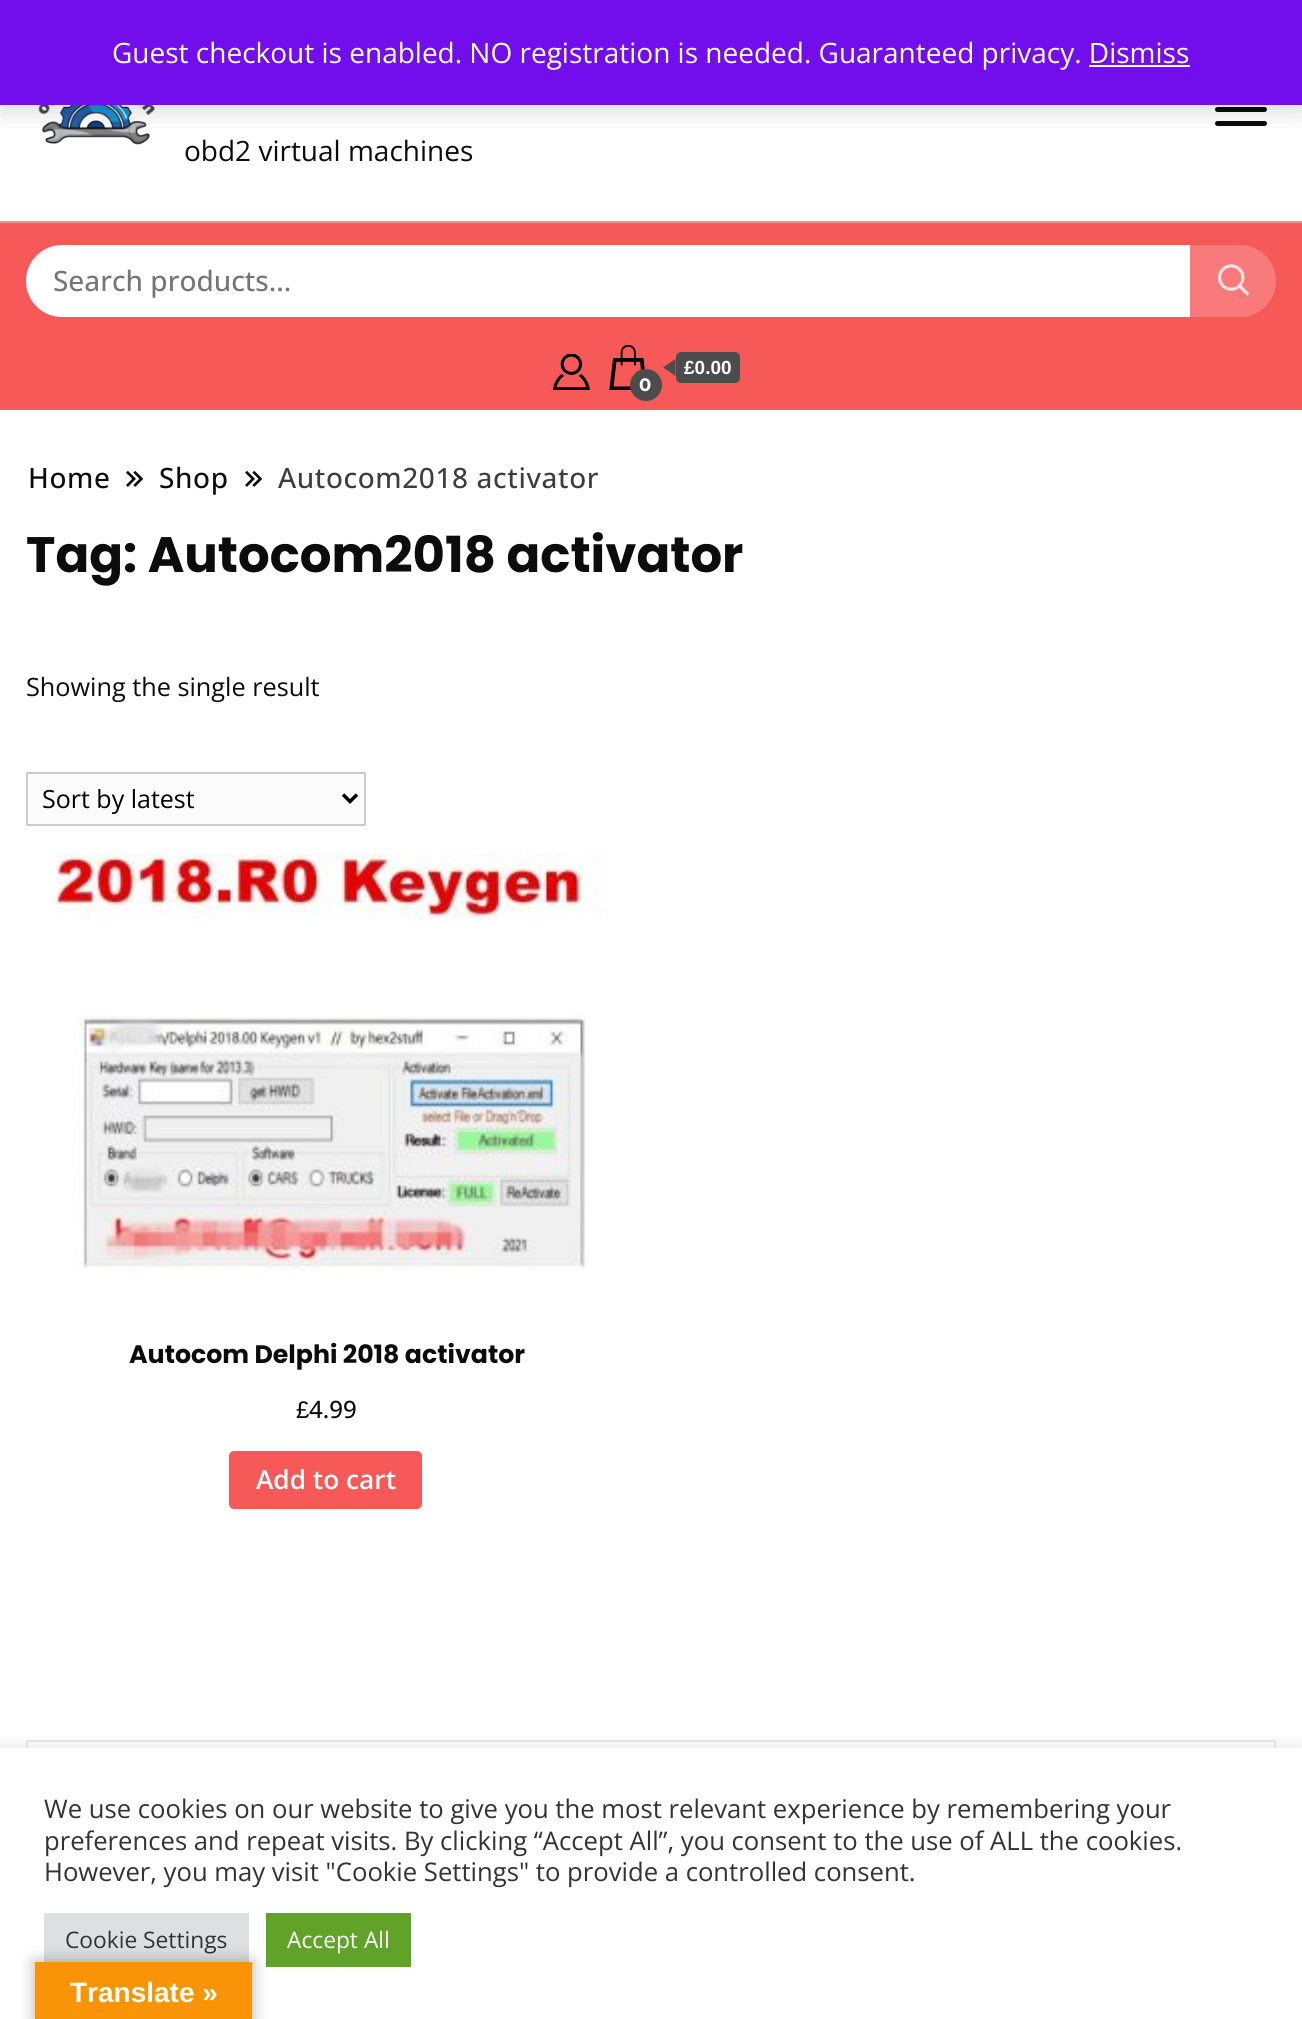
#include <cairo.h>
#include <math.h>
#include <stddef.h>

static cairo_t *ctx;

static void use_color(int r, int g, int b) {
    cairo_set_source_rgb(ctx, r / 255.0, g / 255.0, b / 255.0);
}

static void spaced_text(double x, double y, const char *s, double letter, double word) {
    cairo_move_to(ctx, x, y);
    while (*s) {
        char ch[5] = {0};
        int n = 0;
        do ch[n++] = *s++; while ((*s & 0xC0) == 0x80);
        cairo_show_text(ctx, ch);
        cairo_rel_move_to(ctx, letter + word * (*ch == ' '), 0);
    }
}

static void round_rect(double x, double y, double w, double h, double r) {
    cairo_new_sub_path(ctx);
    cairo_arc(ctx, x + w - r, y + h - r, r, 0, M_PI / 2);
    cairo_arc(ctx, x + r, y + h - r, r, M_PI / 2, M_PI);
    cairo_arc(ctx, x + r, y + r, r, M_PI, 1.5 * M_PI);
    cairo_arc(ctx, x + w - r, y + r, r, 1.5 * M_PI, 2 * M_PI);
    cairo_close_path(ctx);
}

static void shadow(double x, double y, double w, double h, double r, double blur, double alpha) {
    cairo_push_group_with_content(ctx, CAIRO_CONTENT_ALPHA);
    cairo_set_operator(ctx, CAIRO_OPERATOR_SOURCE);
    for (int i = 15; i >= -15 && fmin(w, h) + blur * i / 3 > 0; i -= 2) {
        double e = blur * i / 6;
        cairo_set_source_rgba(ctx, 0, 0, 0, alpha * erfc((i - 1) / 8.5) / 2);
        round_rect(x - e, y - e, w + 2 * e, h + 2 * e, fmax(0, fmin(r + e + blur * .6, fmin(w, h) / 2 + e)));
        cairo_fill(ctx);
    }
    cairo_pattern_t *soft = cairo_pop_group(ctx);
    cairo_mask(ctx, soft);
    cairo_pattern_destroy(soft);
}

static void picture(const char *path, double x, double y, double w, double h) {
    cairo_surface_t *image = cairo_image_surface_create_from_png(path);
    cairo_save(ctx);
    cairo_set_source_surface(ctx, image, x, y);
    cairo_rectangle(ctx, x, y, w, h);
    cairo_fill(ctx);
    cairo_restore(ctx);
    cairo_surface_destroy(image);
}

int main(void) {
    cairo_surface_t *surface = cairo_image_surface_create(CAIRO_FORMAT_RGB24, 1302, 2019);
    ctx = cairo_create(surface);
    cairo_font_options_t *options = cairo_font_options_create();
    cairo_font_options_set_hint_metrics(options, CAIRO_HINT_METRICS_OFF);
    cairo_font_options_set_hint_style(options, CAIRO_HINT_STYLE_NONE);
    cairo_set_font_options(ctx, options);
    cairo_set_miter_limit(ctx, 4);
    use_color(255, 255, 255);
    cairo_paint(ctx);
    use_color(12, 12, 12);
    round_rect(1215, 107, 52, 5, 2.5);
    cairo_fill(ctx);
    round_rect(1215, 121, 52, 5, 2.5);
    cairo_fill(ctx);
    picture("img1.png", 38, 105, 117, 40);
    use_color(0, 0, 0);
    shadow(0, 2, 1302, 105, 0, 14, 0.2);
    use_color(114, 14, 236);
    cairo_rectangle(ctx, 0, 0, 1302, 105);
    cairo_fill(ctx);
    cairo_select_font_face(ctx, "Open Sans", CAIRO_FONT_SLANT_NORMAL, CAIRO_FONT_WEIGHT_NORMAL);
    cairo_set_font_size(ctx, 28);
    use_color(255, 255, 255);
    cairo_move_to(ctx, 112, 63);
    cairo_show_text(ctx, "Guest checkout is enabled. NO registration is needed. Guaranteed privacy. Dismiss");
    use_color(252, 251, 254);
    cairo_rectangle(ctx, 1089, 65, 101, 2);
    cairo_fill(ctx);
    use_color(12, 12, 12);
    cairo_move_to(ctx, 184, 161);
    cairo_show_text(ctx, "obd2 virtual machines");
    use_color(247, 89, 89);
    cairo_rectangle(ctx, 0, 223, 1302, 187);
    cairo_fill(ctx);
    use_color(228, 150, 150);
    cairo_rectangle(ctx, 0, 221, 1302, 2);
    cairo_fill(ctx);
    use_color(255, 255, 255);
    round_rect(26, 245, 1250, 72, 36);
    cairo_fill(ctx);
    cairo_select_font_face(ctx, "Open Sans Medium", CAIRO_FONT_SLANT_NORMAL, CAIRO_FONT_WEIGHT_NORMAL);
    use_color(117, 117, 117);
    cairo_move_to(ctx, 53, 291);
    cairo_show_text(ctx, "Search products...");
    cairo_set_source_rgba(ctx, 0.969, 0.349, 0.349, 0.8);
    cairo_new_path(ctx);
    cairo_move_to(ctx, 1190, 245);
    cairo_line_to(ctx, 1242, 245);
    cairo_curve_to(ctx, 1262, 245, 1278, 261, 1278, 281);
    cairo_curve_to(ctx, 1278, 301, 1262, 317, 1242, 317);
    cairo_line_to(ctx, 1190, 317);
    cairo_close_path(ctx);
    cairo_fill(ctx);
    picture("img2.png", 1218, 264, 32, 32);
    picture("img3.png", 553, 354, 37, 36);
    picture("img4.png", 609, 345, 36, 45);
    use_color(76, 76, 76);
    round_rect(676, 352, 64, 31, 5);
    cairo_fill(ctx);
    cairo_new_path(ctx);
    cairo_move_to(ctx, 675.5, 359);
    cairo_line_to(ctx, 675.5, 376);
    cairo_line_to(ctx, 663, 367.5);
    cairo_close_path(ctx);
    cairo_fill(ctx);
    cairo_select_font_face(ctx, "Liberation Sans", CAIRO_FONT_SLANT_NORMAL, CAIRO_FONT_WEIGHT_BOLD);
    cairo_set_font_size(ctx, 19);
    use_color(255, 255, 255);
    cairo_move_to(ctx, 684, 374);
    cairo_show_text(ctx, "£0.00");
    use_color(76, 76, 76);
    cairo_new_path(ctx);
    cairo_arc(ctx, 646, 385, 16, 0, 2 * M_PI);
    cairo_fill(ctx);
    cairo_select_font_face(ctx, "Montserrat", CAIRO_FONT_SLANT_NORMAL, CAIRO_FONT_WEIGHT_BOLD);
    cairo_set_font_size(ctx, 18);
    use_color(255, 255, 255);
    cairo_move_to(ctx, 639, 391);
    cairo_show_text(ctx, "0");
    cairo_select_font_face(ctx, "Open Sans Medium", CAIRO_FONT_SLANT_NORMAL, CAIRO_FONT_WEIGHT_NORMAL);
    cairo_set_font_size(ctx, 28);
    use_color(12, 12, 12);
    spaced_text(28, 488, "Home", 0.6, 0);
    picture("img5.png", 126, 471, 18, 16);
    spaced_text(159, 488, "Shop", 0.6, 0);
    picture("img5.png", 245, 471, 18, 16);
    use_color(61, 61, 61);
    spaced_text(278, 488, "Autocom2018 activator", 0.6, 0);
    cairo_select_font_face(ctx, "Poppins", CAIRO_FONT_SLANT_NORMAL, CAIRO_FONT_WEIGHT_BOLD);
    cairo_set_font_size(ctx, 49.75);
    use_color(12, 12, 12);
    cairo_move_to(ctx, 26, 572);
    cairo_show_text(ctx, "Tag: Autocom2018 activator");
    cairo_select_font_face(ctx, "Open Sans", CAIRO_FONT_SLANT_NORMAL, CAIRO_FONT_WEIGHT_NORMAL);
    cairo_set_font_size(ctx, 25.25);
    cairo_move_to(ctx, 26, 696);
    cairo_show_text(ctx, "Showing the single result");
    use_color(251, 251, 251);
    cairo_rectangle(ctx, 27, 773, 338, 52);
    cairo_fill_preserve(ctx);
    use_color(204, 204, 204);
    cairo_stroke(ctx);
    cairo_new_path(ctx);
    cairo_move_to(ctx, 343, 794.5);
    cairo_line_to(ctx, 350, 801.5);
    cairo_line_to(ctx, 357, 794.5);
    use_color(0, 0, 0);
    cairo_set_line_width(ctx, 3.5);
    cairo_stroke(ctx);
    cairo_set_font_size(ctx, 25);
    cairo_move_to(ctx, 42, 808);
    cairo_show_text(ctx, "Sort by latest");
    picture("img6.png", 55, 854, 549, 417);
    cairo_select_font_face(ctx, "Poppins", CAIRO_FONT_SLANT_NORMAL, CAIRO_FONT_WEIGHT_BOLD);
    cairo_set_font_size(ctx, 25.25);
    use_color(12, 12, 12);
    cairo_move_to(ctx, 129, 1363);
    cairo_show_text(ctx, "Autocom Delphi 2018 activator");
    cairo_select_font_face(ctx, "Liberation Sans", CAIRO_FONT_SLANT_NORMAL, CAIRO_FONT_WEIGHT_NORMAL);
    cairo_set_font_size(ctx, 24);
    cairo_move_to(ctx, 296, 1418);
    cairo_show_text(ctx, "£");
    cairo_select_font_face(ctx, "Open Sans Medium", CAIRO_FONT_SLANT_NORMAL, CAIRO_FONT_WEIGHT_NORMAL);
    cairo_move_to(ctx, 309, 1418);
    cairo_show_text(ctx, "4.99");
    use_color(247, 89, 89);
    round_rect(229, 1451, 193, 58, 5);
    cairo_fill(ctx);
    cairo_select_font_face(ctx, "Open Sans SemiBold", CAIRO_FONT_SLANT_NORMAL, CAIRO_FONT_WEIGHT_NORMAL);
    cairo_set_font_size(ctx, 26.25);
    use_color(255, 255, 255);
    cairo_move_to(ctx, 256, 1489);
    cairo_show_text(ctx, "Add to cart");
    cairo_rectangle(ctx, 27, 1741, 1248, 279);
    use_color(231, 231, 231);
    cairo_set_line_width(ctx, 2);
    cairo_stroke(ctx);
    use_color(172, 171, 171);
    shadow(0, 1747, 1302, 271, 0, 9, 0.3);
    use_color(255, 255, 255);
    cairo_rectangle(ctx, 0, 1748, 1302, 271);
    cairo_fill(ctx);
    cairo_select_font_face(ctx, "Open Sans", CAIRO_FONT_SLANT_NORMAL, CAIRO_FONT_WEIGHT_NORMAL);
    cairo_set_font_size(ctx, 25.65);
    use_color(51, 51, 51);
    cairo_move_to(ctx, 44, 1818);
    cairo_show_text(ctx, "We use cookies on our website to give you the most relevant experience by remembering your");
    cairo_move_to(ctx, 44, 1850);
    cairo_show_text(ctx, "preferences and repeat visits. By clicking “Accept All”, you consent to the use of ALL the cookies.");
    cairo_move_to(ctx, 44, 1881);
    cairo_show_text(ctx, "However, you may visit \"Cookie Settings\" to provide a controlled consent.");
    use_color(222, 223, 224);
    cairo_rectangle(ctx, 44, 1913, 205, 49);
    cairo_fill(ctx);
    cairo_set_font_size(ctx, 22.75);
    use_color(51, 51, 51);
    cairo_move_to(ctx, 65, 1948);
    cairo_show_text(ctx, "Cookie Settings");
    use_color(97, 162, 41);
    cairo_rectangle(ctx, 266, 1913, 145, 54);
    cairo_fill(ctx);
    use_color(255, 255, 255);
    cairo_move_to(ctx, 287, 1948);
    cairo_show_text(ctx, "Accept All");
    use_color(0, 0, 0);
    shadow(35, 1962, 217, 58, 0, 8, 0.3);
    use_color(248, 148, 6);
    cairo_rectangle(ctx, 35, 1962, 217, 57);
    cairo_fill(ctx);
    cairo_select_font_face(ctx, "Liberation Sans", CAIRO_FONT_SLANT_NORMAL, CAIRO_FONT_WEIGHT_BOLD);
    cairo_set_font_size(ctx, 28);
    use_color(255, 255, 255);
    cairo_move_to(ctx, 70, 2002);
    cairo_show_text(ctx, "Translate »");
    cairo_surface_write_to_png(surface, "result.png");
    cairo_font_options_destroy(options);
    cairo_destroy(ctx);
    cairo_surface_destroy(surface);
    return 0;
}
